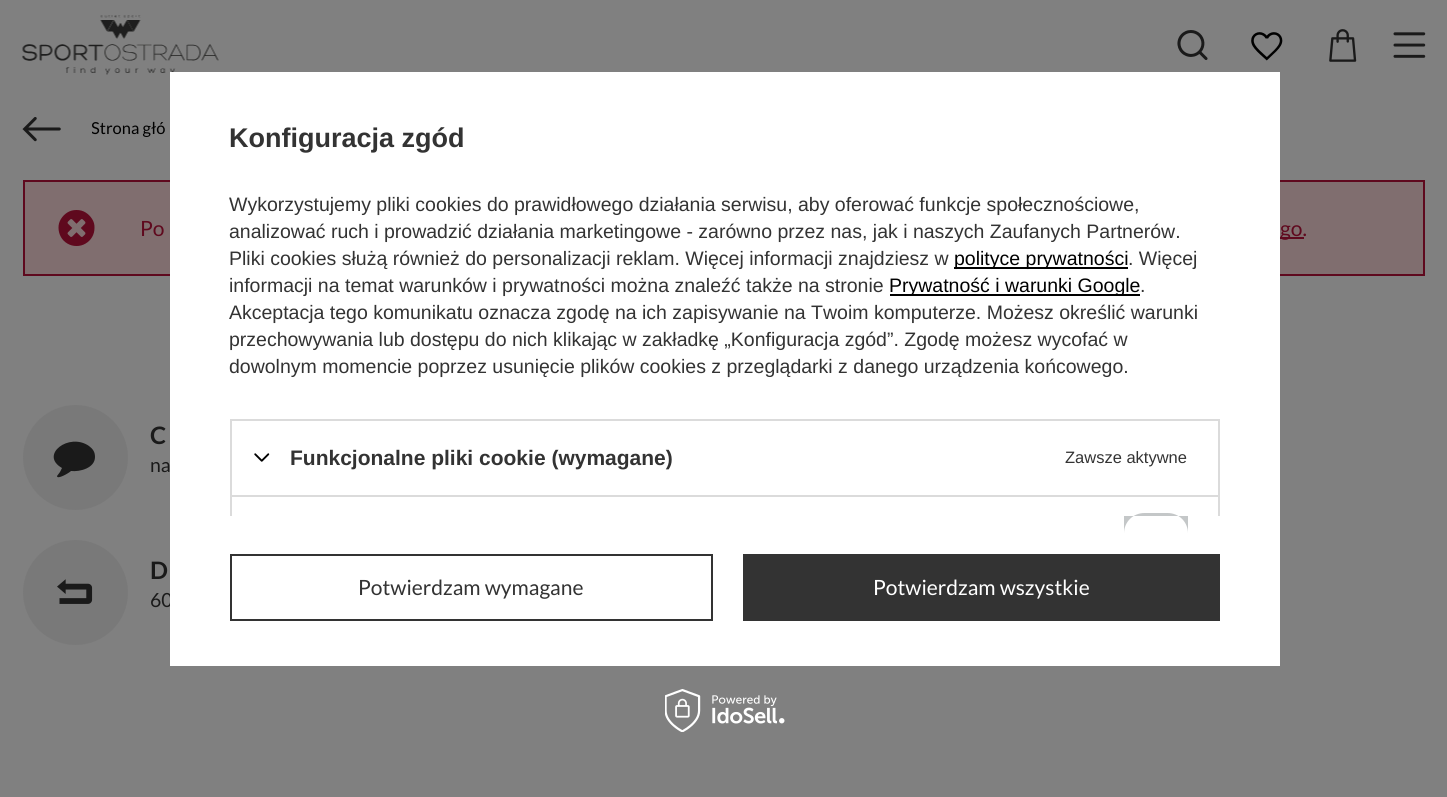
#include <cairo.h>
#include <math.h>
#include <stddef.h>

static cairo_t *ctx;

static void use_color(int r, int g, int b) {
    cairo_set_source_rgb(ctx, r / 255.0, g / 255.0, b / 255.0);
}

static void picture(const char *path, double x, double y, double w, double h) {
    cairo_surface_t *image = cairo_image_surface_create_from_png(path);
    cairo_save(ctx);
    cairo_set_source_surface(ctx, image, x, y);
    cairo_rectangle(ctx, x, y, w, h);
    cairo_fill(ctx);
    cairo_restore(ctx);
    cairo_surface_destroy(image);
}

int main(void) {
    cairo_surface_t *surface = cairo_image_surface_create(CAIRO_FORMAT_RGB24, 1447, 797);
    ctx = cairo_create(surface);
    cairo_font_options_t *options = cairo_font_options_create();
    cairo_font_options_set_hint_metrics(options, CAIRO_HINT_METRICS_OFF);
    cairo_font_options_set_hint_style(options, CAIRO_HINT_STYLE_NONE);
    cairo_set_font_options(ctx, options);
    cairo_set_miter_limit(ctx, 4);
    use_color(128, 128, 128);
    cairo_paint(ctx);
    picture("img1.png", 22, 15, 197, 60);
    picture("img2.png", 1177, 30, 31, 31);
    picture("img3.png", 1251, 32, 32, 29);
    picture("img4.png", 1329, 29, 28, 33);
    picture("img5.png", 1393, 32, 33, 26);
    picture("img6.png", 22, 117, 39, 25);
    cairo_save(ctx);
    cairo_rectangle(ctx, 92, 105, 189, 45);
    cairo_clip(ctx);
    cairo_select_font_face(ctx, "Lato", CAIRO_FONT_SLANT_NORMAL, CAIRO_FONT_WEIGHT_NORMAL);
    cairo_set_font_size(ctx, 16.5);
    use_color(0, 0, 0);
    cairo_move_to(ctx, 91, 134);
    cairo_show_text(ctx, "Strona głó");
    cairo_restore(ctx);
    use_color(128, 110, 111);
    cairo_rectangle(ctx, 24, 181, 1400, 94);
    cairo_fill_preserve(ctx);
    use_color(95, 9, 30);
    cairo_stroke(ctx);
    picture("img7.png", 58, 210, 37, 36);
    cairo_select_font_face(ctx, "Lato", CAIRO_FONT_SLANT_NORMAL, CAIRO_FONT_WEIGHT_NORMAL);
    cairo_set_font_size(ctx, 21);
    cairo_move_to(ctx, 140, 236);
    cairo_show_text(ctx, "Po");
    cairo_rectangle(ctx, 1280, 237, 24, 2);
    cairo_fill(ctx);
    cairo_move_to(ctx, 1280, 236);
    cairo_show_text(ctx, "go.");
    use_color(121, 121, 121);
    cairo_new_path(ctx);
    cairo_arc(ctx, 75.5, 457.5, 52.5, 0, 2 * M_PI);
    cairo_fill(ctx);
    use_color(26, 26, 26);
    cairo_new_path(ctx);
    cairo_move_to(ctx, 95, 457);
    cairo_curve_to(ctx, 95, 468, 80, 472, 71, 471);
    cairo_curve_to(ctx, 69, 473, 57, 480, 57, 476);
    cairo_line_to(ctx, 60, 472);
    cairo_line_to(ctx, 62, 468);
    cairo_curve_to(ctx, 39, 455, 69, 432, 89, 446);
    cairo_curve_to(ctx, 93, 449, 95, 452, 95, 457);
    cairo_close_path(ctx);
    cairo_fill(ctx);
    cairo_select_font_face(ctx, "Lato", CAIRO_FONT_SLANT_NORMAL, CAIRO_FONT_WEIGHT_BOLD);
    cairo_set_font_size(ctx, 24);
    cairo_move_to(ctx, 150, 444);
    cairo_show_text(ctx, "C");
    cairo_select_font_face(ctx, "Lato", CAIRO_FONT_SLANT_NORMAL, CAIRO_FONT_WEIGHT_NORMAL);
    cairo_set_font_size(ctx, 19.5);
    cairo_move_to(ctx, 150, 472);
    cairo_show_text(ctx, "na");
    use_color(121, 121, 121);
    cairo_new_path(ctx);
    cairo_arc(ctx, 75.5, 592.5, 52.5, 0, 2 * M_PI);
    cairo_fill(ctx);
    picture("img8.png", 57, 579, 36, 25);
    cairo_select_font_face(ctx, "Lato", CAIRO_FONT_SLANT_NORMAL, CAIRO_FONT_WEIGHT_BOLD);
    cairo_set_font_size(ctx, 24);
    use_color(26, 26, 26);
    cairo_move_to(ctx, 150, 579);
    cairo_show_text(ctx, "D");
    cairo_select_font_face(ctx, "Lato", CAIRO_FONT_SLANT_NORMAL, CAIRO_FONT_WEIGHT_NORMAL);
    cairo_set_font_size(ctx, 19.5);
    cairo_move_to(ctx, 150, 607);
    cairo_show_text(ctx, "60");
    use_color(255, 255, 255);
    cairo_rectangle(ctx, 170, 72, 1110, 594);
    cairo_fill(ctx);
    cairo_select_font_face(ctx, "Liberation Sans", CAIRO_FONT_SLANT_NORMAL, CAIRO_FONT_WEIGHT_BOLD);
    cairo_set_font_size(ctx, 27);
    use_color(51, 51, 51);
    cairo_move_to(ctx, 229, 147);
    cairo_show_text(ctx, "Konfiguracja zgód");
    cairo_select_font_face(ctx, "Liberation Sans", CAIRO_FONT_SLANT_NORMAL, CAIRO_FONT_WEIGHT_NORMAL);
    cairo_set_font_size(ctx, 19.5);
    cairo_move_to(ctx, 229, 211);
    cairo_show_text(ctx, "Wykorzystujemy pliki cookies do prawidłowego działania serwisu, aby oferować funkcje społecznościowe,");
    cairo_move_to(ctx, 229, 238);
    cairo_show_text(ctx, "analizować ruch i prowadzić działania marketingowe - zarówno przez nas, jak i naszych Zaufanych Partnerów.");
    cairo_move_to(ctx, 229, 265);
    cairo_show_text(ctx, "Pliki cookies służą również do personalizacji reklam. Więcej informacji znajdziesz w");
    use_color(0, 0, 0);
    cairo_rectangle(ctx, 954, 267, 174, 2);
    cairo_fill(ctx);
    cairo_move_to(ctx, 954, 265);
    cairo_show_text(ctx, "polityce prywatności");
    use_color(51, 51, 51);
    cairo_move_to(ctx, 1128, 265);
    cairo_show_text(ctx, ". Więcej");
    cairo_move_to(ctx, 229, 292);
    cairo_show_text(ctx, "informacji na temat warunków i prywatności można znaleźć także na stronie");
    use_color(0, 0, 0);
    cairo_rectangle(ctx, 890, 294, 250, 2);
    cairo_fill(ctx);
    cairo_move_to(ctx, 889, 292);
    cairo_show_text(ctx, "Prywatność i warunki Google");
    use_color(51, 51, 51);
    cairo_move_to(ctx, 1140, 292);
    cairo_show_text(ctx, ".");
    cairo_move_to(ctx, 229, 319);
    cairo_show_text(ctx, "Akceptacja tego komunikatu oznacza zgodę na ich zapisywanie na Twoim komputerze. Możesz określić warunki");
    cairo_move_to(ctx, 229, 346);
    cairo_show_text(ctx, "przechowywania lub dostępu do nich klikając w zakładkę „Konfiguracja zgód”. Zgodę możesz wycofać w");
    cairo_move_to(ctx, 229, 373);
    cairo_show_text(ctx, "dowolnym momencie poprzez usunięcie plików cookies z przeglądarki z danego urządzenia końcowego.");
    use_color(219, 219, 219);
    cairo_rectangle(ctx, 230, 419, 990, 2);
    cairo_fill(ctx);
    cairo_rectangle(ctx, 1218, 419, 2, 76);
    cairo_fill(ctx);
    cairo_rectangle(ctx, 230, 419, 2, 76);
    cairo_fill(ctx);
    picture("img9.png", 254, 453, 16, 9);
    cairo_select_font_face(ctx, "Liberation Sans", CAIRO_FONT_SLANT_NORMAL, CAIRO_FONT_WEIGHT_BOLD);
    cairo_set_font_size(ctx, 21);
    use_color(51, 51, 51);
    cairo_move_to(ctx, 290, 465);
    cairo_show_text(ctx, "Funkcjonalne pliki cookie (wymagane)");
    cairo_select_font_face(ctx, "Liberation Sans", CAIRO_FONT_SLANT_NORMAL, CAIRO_FONT_WEIGHT_NORMAL);
    cairo_set_font_size(ctx, 16.5);
    cairo_move_to(ctx, 1065, 463);
    cairo_show_text(ctx, "Zawsze aktywne");
    use_color(219, 219, 219);
    cairo_rectangle(ctx, 230, 495, 990, 2);
    cairo_fill(ctx);
    cairo_rectangle(ctx, 1218, 495, 2, 21);
    cairo_fill(ctx);
    cairo_rectangle(ctx, 230, 495, 2, 21);
    cairo_fill(ctx);
    use_color(196, 199, 200);
    cairo_new_path(ctx);
    cairo_move_to(ctx, 1144.5, 513);
    cairo_line_to(ctx, 1167.5, 513);
    cairo_curve_to(ctx, 1179, 513, 1188, 522, 1188, 533.5);
    cairo_line_to(ctx, 1188, 516);
    cairo_line_to(ctx, 1124, 516);
    cairo_line_to(ctx, 1124, 533.5);
    cairo_curve_to(ctx, 1124, 522, 1133, 513, 1144.5, 513);
    cairo_close_path(ctx);
    cairo_fill(ctx);
    cairo_rectangle(ctx, 231, 555, 481, 65);
    use_color(51, 51, 51);
    cairo_stroke(ctx);
    cairo_select_font_face(ctx, "Lato", CAIRO_FONT_SLANT_NORMAL, CAIRO_FONT_WEIGHT_NORMAL);
    cairo_set_font_size(ctx, 21);
    cairo_move_to(ctx, 358, 595);
    cairo_show_text(ctx, "Potwierdzam wymagane");
    cairo_rectangle(ctx, 743, 554, 477, 67);
    cairo_fill(ctx);
    use_color(255, 255, 255);
    cairo_move_to(ctx, 873, 595);
    cairo_show_text(ctx, "Potwierdzam wszystkie");
    picture("img10.png", 665, 689, 120, 43);
    cairo_surface_write_to_png(surface, "result.png");
    cairo_font_options_destroy(options);
    cairo_destroy(ctx);
    cairo_surface_destroy(surface);
    return 0;
}
